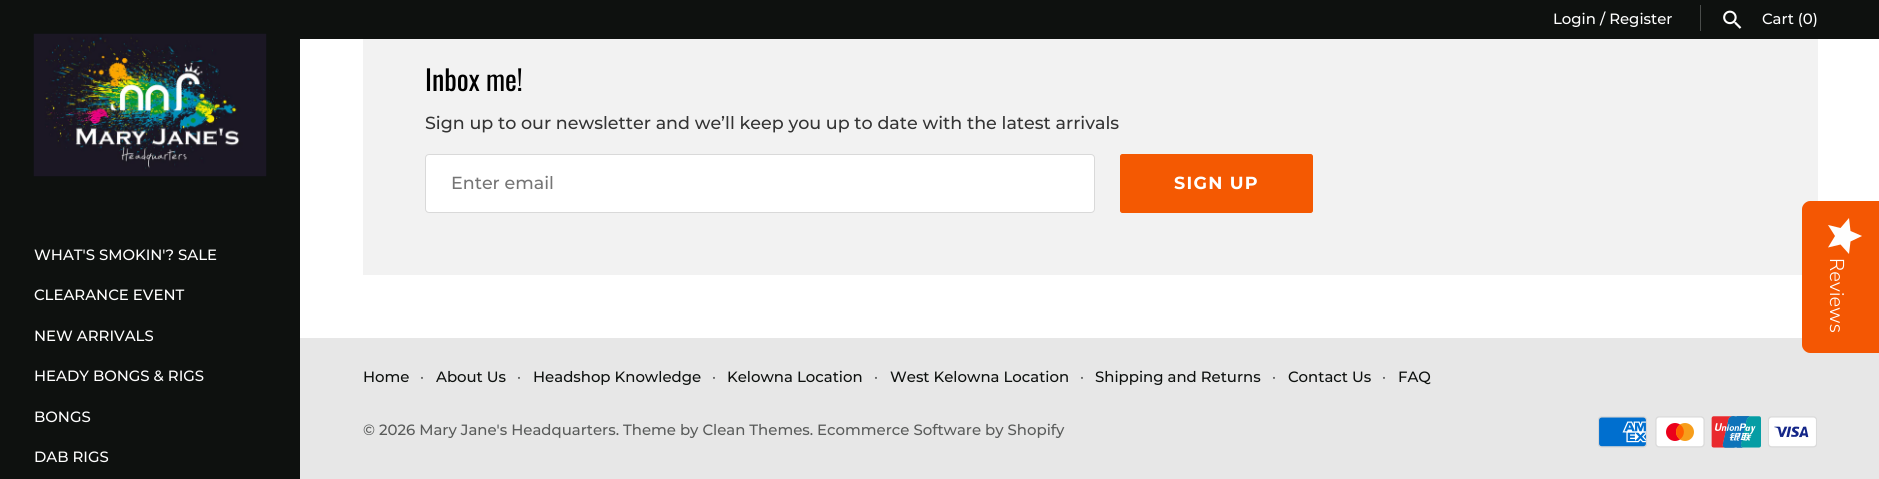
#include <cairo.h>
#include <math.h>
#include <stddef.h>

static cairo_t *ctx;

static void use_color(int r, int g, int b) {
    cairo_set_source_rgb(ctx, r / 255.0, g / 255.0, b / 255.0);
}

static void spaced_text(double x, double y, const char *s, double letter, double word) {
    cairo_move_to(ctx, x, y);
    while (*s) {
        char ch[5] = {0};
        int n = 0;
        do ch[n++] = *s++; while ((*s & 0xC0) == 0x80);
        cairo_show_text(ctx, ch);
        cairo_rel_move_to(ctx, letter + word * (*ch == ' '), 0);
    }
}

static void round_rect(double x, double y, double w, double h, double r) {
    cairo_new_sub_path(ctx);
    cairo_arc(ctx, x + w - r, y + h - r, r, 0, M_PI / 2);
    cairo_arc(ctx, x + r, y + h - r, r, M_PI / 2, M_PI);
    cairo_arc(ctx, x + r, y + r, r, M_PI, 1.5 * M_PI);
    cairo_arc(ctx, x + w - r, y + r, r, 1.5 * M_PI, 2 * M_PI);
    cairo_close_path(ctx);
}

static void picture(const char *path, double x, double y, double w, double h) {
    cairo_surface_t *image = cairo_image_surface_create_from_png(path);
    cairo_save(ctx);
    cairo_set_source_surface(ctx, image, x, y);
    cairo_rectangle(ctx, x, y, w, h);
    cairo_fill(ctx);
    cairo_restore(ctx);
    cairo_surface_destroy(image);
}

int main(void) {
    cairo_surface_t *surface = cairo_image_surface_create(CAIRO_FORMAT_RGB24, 1879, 479);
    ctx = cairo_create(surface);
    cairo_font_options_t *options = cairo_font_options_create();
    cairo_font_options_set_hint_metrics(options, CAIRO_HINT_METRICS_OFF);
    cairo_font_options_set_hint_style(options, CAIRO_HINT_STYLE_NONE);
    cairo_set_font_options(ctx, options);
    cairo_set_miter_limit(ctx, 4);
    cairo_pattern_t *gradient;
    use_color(255, 255, 255);
    cairo_paint(ctx);
    use_color(14, 17, 15);
    cairo_rectangle(ctx, 300, 0, 1579, 39);
    cairo_fill(ctx);
    cairo_select_font_face(ctx, "Montserrat Medium", CAIRO_FONT_SLANT_NORMAL, CAIRO_FONT_WEIGHT_NORMAL);
    cairo_set_font_size(ctx, 14.9);
    use_color(255, 255, 255);
    cairo_move_to(ctx, 1553, 24);
    cairo_show_text(ctx, "Login / Register");
    use_color(74, 77, 75);
    cairo_rectangle(ctx, 1700, 5, 1, 26);
    cairo_fill(ctx);
    picture("img1.png", 1723, 10, 19, 19);
    use_color(255, 255, 255);
    cairo_move_to(ctx, 1762, 24);
    cairo_show_text(ctx, "Cart (0)");
    use_color(14, 17, 15);
    cairo_rectangle(ctx, 0, 0, 300, 479);
    cairo_fill(ctx);
    picture("img2.png", 33, 33, 234, 144);
    use_color(255, 255, 255);
    cairo_move_to(ctx, 34, 260);
    cairo_show_text(ctx, "WHAT'S SMOKIN'? SALE");
    cairo_move_to(ctx, 34, 300);
    cairo_show_text(ctx, "CLEARANCE EVENT");
    cairo_move_to(ctx, 34, 341);
    cairo_show_text(ctx, "NEW ARRIVALS");
    cairo_move_to(ctx, 34, 381);
    cairo_show_text(ctx, "HEADY BONGS & RIGS");
    cairo_move_to(ctx, 34, 422);
    cairo_show_text(ctx, "BONGS");
    cairo_move_to(ctx, 34, 462);
    cairo_show_text(ctx, "DAB RIGS");
    use_color(242, 242, 242);
    cairo_rectangle(ctx, 363, 39, 1455, 236);
    cairo_fill(ctx);
    cairo_select_font_face(ctx, "Oswald", CAIRO_FONT_SLANT_NORMAL, CAIRO_FONT_WEIGHT_NORMAL);
    cairo_set_font_size(ctx, 28);
    use_color(0, 0, 0);
    cairo_move_to(ctx, 425, 91);
    cairo_show_text(ctx, "Inbox me!");
    cairo_select_font_face(ctx, "Montserrat Medium", CAIRO_FONT_SLANT_NORMAL, CAIRO_FONT_WEIGHT_NORMAL);
    cairo_set_font_size(ctx, 17.5);
    use_color(52, 52, 52);
    cairo_move_to(ctx, 425, 129);
    cairo_show_text(ctx, "Sign up to our newsletter and we’ll keep you up to date with the latest arrivals");
    use_color(255, 255, 255);
    round_rect(425, 154, 670, 59, 4);
    cairo_fill(ctx);
    round_rect(425.5, 154.5, 669, 58, 3.5);
    cairo_set_source_rgba(ctx, 0, 0, 0, 0.15);
    cairo_set_line_width(ctx, 1);
    cairo_stroke(ctx);
    use_color(117, 117, 117);
    cairo_move_to(ctx, 451, 189);
    cairo_show_text(ctx, "Enter email");
    use_color(244, 89, 2);
    round_rect(1120.5, 154.5, 192, 58, 2);
    cairo_fill_preserve(ctx);
    cairo_stroke(ctx);
    cairo_select_font_face(ctx, "Montserrat", CAIRO_FONT_SLANT_NORMAL, CAIRO_FONT_WEIGHT_BOLD);
    use_color(255, 255, 255);
    spaced_text(1174, 189, "SIGN UP", 1.25, 0);
    use_color(231, 231, 231);
    cairo_rectangle(ctx, 300, 338, 1579, 141);
    cairo_fill(ctx);
    cairo_select_font_face(ctx, "Montserrat Medium", CAIRO_FONT_SLANT_NORMAL, CAIRO_FONT_WEIGHT_NORMAL);
    cairo_set_font_size(ctx, 14.9);
    use_color(14, 17, 15);
    cairo_move_to(ctx, 363, 382);
    cairo_show_text(ctx, "Home");
    use_color(89, 91, 90);
    cairo_move_to(ctx, 420, 382);
    cairo_show_text(ctx, "·");
    use_color(14, 17, 15);
    cairo_move_to(ctx, 436, 382);
    cairo_show_text(ctx, "About Us");
    use_color(89, 91, 90);
    cairo_move_to(ctx, 517, 382);
    cairo_show_text(ctx, "·");
    use_color(14, 17, 15);
    cairo_move_to(ctx, 533, 382);
    cairo_show_text(ctx, "Headshop Knowledge");
    use_color(89, 91, 90);
    cairo_move_to(ctx, 712, 382);
    cairo_show_text(ctx, "·");
    use_color(14, 17, 15);
    cairo_move_to(ctx, 727, 382);
    cairo_show_text(ctx, "Kelowna Location");
    use_color(89, 91, 90);
    cairo_move_to(ctx, 874, 382);
    cairo_show_text(ctx, "·");
    use_color(14, 17, 15);
    cairo_move_to(ctx, 890, 382);
    cairo_show_text(ctx, "West Kelowna Location");
    use_color(89, 91, 90);
    cairo_move_to(ctx, 1080, 382);
    cairo_show_text(ctx, "·");
    use_color(14, 17, 15);
    cairo_move_to(ctx, 1095, 382);
    cairo_show_text(ctx, "Shipping and Returns");
    use_color(89, 91, 90);
    cairo_move_to(ctx, 1272, 382);
    cairo_show_text(ctx, "·");
    use_color(14, 17, 15);
    cairo_move_to(ctx, 1288, 382);
    cairo_show_text(ctx, "Contact Us");
    use_color(89, 91, 90);
    cairo_move_to(ctx, 1382, 382);
    cairo_show_text(ctx, "·");
    use_color(14, 17, 15);
    cairo_move_to(ctx, 1398, 382);
    cairo_show_text(ctx, "FAQ");
    use_color(89, 91, 90);
    cairo_move_to(ctx, 363, 435);
    cairo_show_text(ctx, "© 2026 Mary Jane's Headquarters. Theme by Clean Themes. Ecommerce Software by Shopify");
    picture("img3.png", 1598, 416, 49, 32);
    picture("img4.png", 1655, 416, 50, 32);
    picture("img5.png", 1711, 416, 50, 32);
    picture("img6.png", 1768, 416, 49, 32);
    use_color(244, 87, 3);
    cairo_new_path(ctx);
    cairo_move_to(ctx, 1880, 201);
    cairo_line_to(ctx, 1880, 353);
    cairo_line_to(ctx, 1810, 353);
    cairo_curve_to(ctx, 1806, 353, 1802, 349, 1802, 345);
    cairo_line_to(ctx, 1802, 209);
    cairo_curve_to(ctx, 1802, 205, 1806, 201, 1810, 201);
    cairo_close_path(ctx);
    cairo_fill(ctx);
    gradient = cairo_pattern_create_linear(1862, 218, 1862, 254);
    cairo_pattern_add_color_stop_rgba(gradient, 1, 0.996, 0.996, 0.996, 1);
    cairo_pattern_add_color_stop_rgba(gradient, 1, 0.918, 0.918, 0.918, 1);
    cairo_set_source(ctx, gradient);
    cairo_pattern_destroy(gradient);
    cairo_new_path(ctx);
    cairo_move_to(ctx, 1835, 236);
    cairo_line_to(ctx, 1828, 247.5);
    cairo_line_to(ctx, 1840.5, 244.5);
    cairo_line_to(ctx, 1849, 254);
    cairo_line_to(ctx, 1850.5, 241.5);
    cairo_line_to(ctx, 1862, 236);
    cairo_line_to(ctx, 1850.5, 231);
    cairo_line_to(ctx, 1849, 218);
    cairo_line_to(ctx, 1840.5, 228);
    cairo_line_to(ctx, 1828, 225);
    cairo_close_path(ctx);
    cairo_fill(ctx);
    cairo_select_font_face(ctx, "Nunito Sans Light", CAIRO_FONT_SLANT_NORMAL, CAIRO_FONT_WEIGHT_NORMAL);
    cairo_set_font_size(ctx, 20);
    use_color(255, 255, 255);
    cairo_save(ctx);
    cairo_translate(ctx, 1830, 258);
    cairo_rotate(ctx, 90 * M_PI / 180);
    cairo_move_to(ctx, 0, 0);
    cairo_show_text(ctx, "Reviews");
    cairo_restore(ctx);
    cairo_surface_write_to_png(surface, "result.png");
    cairo_font_options_destroy(options);
    cairo_destroy(ctx);
    cairo_surface_destroy(surface);
    return 0;
}
